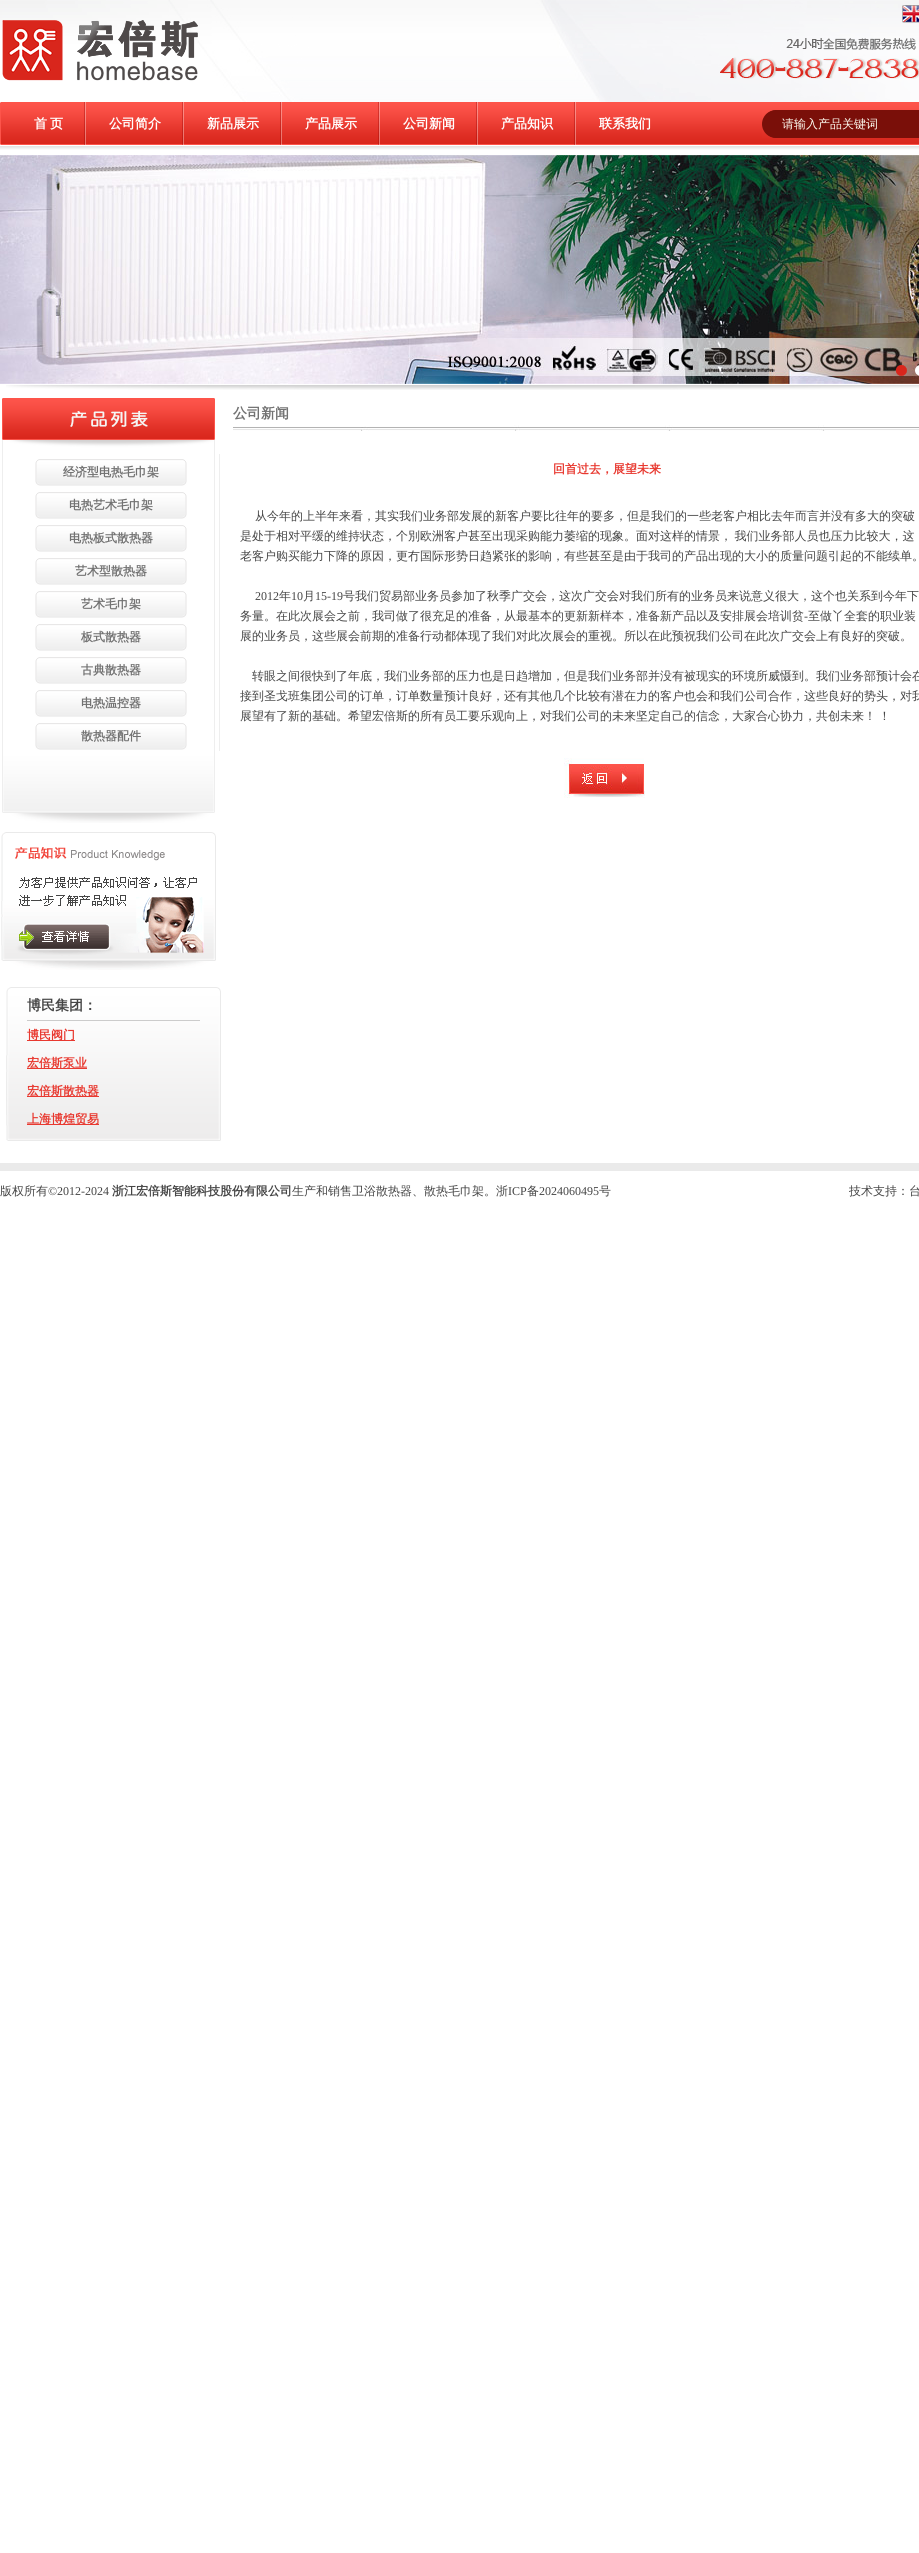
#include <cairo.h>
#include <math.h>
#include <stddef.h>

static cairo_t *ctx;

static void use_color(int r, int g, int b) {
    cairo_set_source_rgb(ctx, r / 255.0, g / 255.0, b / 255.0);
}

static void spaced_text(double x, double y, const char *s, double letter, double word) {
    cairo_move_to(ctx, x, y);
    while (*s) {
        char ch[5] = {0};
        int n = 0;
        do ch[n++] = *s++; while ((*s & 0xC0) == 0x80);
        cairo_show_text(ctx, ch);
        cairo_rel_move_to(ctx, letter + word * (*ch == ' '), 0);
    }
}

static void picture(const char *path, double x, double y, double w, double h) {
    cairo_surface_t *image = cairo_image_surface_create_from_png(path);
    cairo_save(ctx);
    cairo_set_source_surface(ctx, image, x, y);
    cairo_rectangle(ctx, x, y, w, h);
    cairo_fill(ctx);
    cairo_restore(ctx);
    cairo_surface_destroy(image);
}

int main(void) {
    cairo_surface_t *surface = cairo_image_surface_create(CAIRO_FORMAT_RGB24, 919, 2553);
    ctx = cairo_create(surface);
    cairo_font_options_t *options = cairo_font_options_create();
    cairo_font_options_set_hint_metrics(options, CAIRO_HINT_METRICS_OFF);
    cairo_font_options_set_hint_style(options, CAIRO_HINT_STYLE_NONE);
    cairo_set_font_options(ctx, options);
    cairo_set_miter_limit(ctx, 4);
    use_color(255, 255, 255);
    cairo_paint(ctx);
    picture("img1.png", 0, 0, 2, 30);
    picture("img2.png", 2, 0, 917, 102);
    picture("img3.png", 0, 102, 6, 43);
    picture("img4.png", 6, 102, 913, 43);
    picture("img5.png", 84, 102, 2, 43);
    cairo_select_font_face(ctx, "WenQuanYi Zen Hei", CAIRO_FONT_SLANT_NORMAL, CAIRO_FONT_WEIGHT_BOLD);
    cairo_set_font_size(ctx, 13);
    use_color(255, 255, 255);
    spaced_text(34, 128, "首 页", 0, -1);
    picture("img5.png", 182, 102, 2, 43);
    cairo_move_to(ctx, 109, 128);
    cairo_show_text(ctx, "公司简介");
    picture("img5.png", 280, 102, 2, 43);
    cairo_move_to(ctx, 207, 128);
    cairo_show_text(ctx, "新品展示");
    picture("img5.png", 378, 102, 2, 43);
    cairo_move_to(ctx, 305, 128);
    cairo_show_text(ctx, "产品展示");
    picture("img5.png", 476, 102, 2, 43);
    cairo_move_to(ctx, 403, 128);
    cairo_show_text(ctx, "公司新闻");
    picture("img5.png", 574, 102, 2, 43);
    cairo_move_to(ctx, 501, 128);
    cairo_show_text(ctx, "产品知识");
    cairo_move_to(ctx, 599, 128);
    cairo_show_text(ctx, "联系我们");
    picture("img6.png", 762, 110, 15, 28);
    use_color(122, 15, 9);
    cairo_rectangle(ctx, 777, 110, 142, 28);
    cairo_fill(ctx);
    cairo_select_font_face(ctx, "WenQuanYi Zen Hei Medium", CAIRO_FONT_SLANT_NORMAL, CAIRO_FONT_WEIGHT_NORMAL);
    cairo_set_font_size(ctx, 12);
    use_color(254, 251, 240);
    cairo_move_to(ctx, 782, 128);
    cairo_show_text(ctx, "请输入产品关键词");
    picture("img7.png", 0, 146, 919, 4);
    picture("img8.png", 0, 155, 919, 229);
    picture("img9.png", 895, 365, 12, 11);
    picture("img10.png", 915, 365, 4, 11);
    picture("img11.png", 6, 385, 913, 5);
    picture("img12.png", 2, 398, 213, 56);
    picture("img13.png", 2, 454, 218, 297);
    picture("img14.png", 35, 459, 152, 27);
    cairo_select_font_face(ctx, "WenQuanYi Zen Hei", CAIRO_FONT_SLANT_NORMAL, CAIRO_FONT_WEIGHT_BOLD);
    use_color(114, 114, 114);
    cairo_move_to(ctx, 63, 476);
    cairo_show_text(ctx, "经济型电热毛巾架");
    picture("img14.png", 35, 492, 152, 27);
    cairo_move_to(ctx, 69, 509);
    cairo_show_text(ctx, "电热艺术毛巾架");
    picture("img14.png", 35, 525, 152, 27);
    cairo_move_to(ctx, 69, 542);
    cairo_show_text(ctx, "电热板式散热器");
    picture("img14.png", 35, 558, 152, 27);
    cairo_move_to(ctx, 75, 575);
    cairo_show_text(ctx, "艺术型散热器");
    picture("img14.png", 35, 591, 152, 27);
    cairo_move_to(ctx, 81, 608);
    cairo_show_text(ctx, "艺术毛巾架");
    picture("img14.png", 35, 624, 152, 27);
    cairo_move_to(ctx, 81, 641);
    cairo_show_text(ctx, "板式散热器");
    picture("img14.png", 35, 657, 152, 27);
    cairo_move_to(ctx, 81, 674);
    cairo_show_text(ctx, "古典散热器");
    picture("img14.png", 35, 690, 152, 27);
    cairo_move_to(ctx, 81, 707);
    cairo_show_text(ctx, "电热温控器");
    picture("img14.png", 35, 723, 152, 27);
    cairo_move_to(ctx, 81, 740);
    cairo_show_text(ctx, "散热器配件");
    picture("img15.png", 2, 751, 213, 72);
    picture("img16.png", 1, 832, 215, 138);
    picture("img17.png", 6, 987, 215, 154);
    cairo_set_font_size(ctx, 14);
    use_color(69, 69, 69);
    cairo_move_to(ctx, 27, 1010);
    cairo_show_text(ctx, "博民集团：");
    use_color(204, 204, 204);
    cairo_rectangle(ctx, 27, 1020, 173, 1);
    cairo_fill(ctx);
    use_color(232, 57, 48);
    cairo_rectangle(ctx, 27, 1040, 48, 1);
    cairo_fill(ctx);
    cairo_set_font_size(ctx, 12);
    cairo_move_to(ctx, 27, 1039);
    cairo_show_text(ctx, "博民阀门");
    cairo_rectangle(ctx, 27, 1068, 60, 1);
    cairo_fill(ctx);
    cairo_move_to(ctx, 27, 1067);
    cairo_show_text(ctx, "宏倍斯泵业");
    cairo_rectangle(ctx, 27, 1096, 72, 1);
    cairo_fill(ctx);
    cairo_move_to(ctx, 27, 1095);
    cairo_show_text(ctx, "宏倍斯散热器");
    cairo_rectangle(ctx, 27, 1124, 72, 1);
    cairo_fill(ctx);
    cairo_move_to(ctx, 27, 1123);
    cairo_show_text(ctx, "上海博煌贸易");
    cairo_set_font_size(ctx, 14);
    use_color(114, 114, 114);
    cairo_move_to(ctx, 233, 418);
    cairo_show_text(ctx, "公司新闻");
    picture("img18.png", 233, 425, 686, 6);
    cairo_set_font_size(ctx, 12);
    use_color(232, 57, 48);
    cairo_move_to(ctx, 553, 473);
    cairo_show_text(ctx, "回首过去，展望未来");
    cairo_select_font_face(ctx, "WenQuanYi Zen Hei Medium", CAIRO_FONT_SLANT_NORMAL, CAIRO_FONT_WEIGHT_NORMAL);
    use_color(69, 69, 69);
    cairo_move_to(ctx, 255, 520);
    cairo_show_text(ctx, "从今年的上半年来看，其实我们业务部发展的新客户要比往年的要多，但是我们的一些老客户相比去年而言并没有多大的突破");
    spaced_text(240, 540, "是处于相对平缓的维持状态，个別欧洲客户甚至出现采购能力萎缩的现象。面对这样的情景， 我们业务部人员也压力比较大，这", 0, -1);
    cairo_move_to(ctx, 240, 560);
    cairo_show_text(ctx, "老客户购买能力下降的原因，更冇国际形势日趋紧张的影响，有些甚至是由于我司的产品出现的大小的质量问题引起的不能续单。");
    cairo_select_font_face(ctx, "Liberation Serif", CAIRO_FONT_SLANT_NORMAL, CAIRO_FONT_WEIGHT_NORMAL);
    cairo_move_to(ctx, 255, 600);
    cairo_show_text(ctx, "2012");
    cairo_select_font_face(ctx, "WenQuanYi Zen Hei Medium", CAIRO_FONT_SLANT_NORMAL, CAIRO_FONT_WEIGHT_NORMAL);
    cairo_move_to(ctx, 279, 600);
    cairo_show_text(ctx, "年");
    cairo_select_font_face(ctx, "Liberation Serif", CAIRO_FONT_SLANT_NORMAL, CAIRO_FONT_WEIGHT_NORMAL);
    cairo_move_to(ctx, 291, 600);
    cairo_show_text(ctx, "10");
    cairo_select_font_face(ctx, "WenQuanYi Zen Hei Medium", CAIRO_FONT_SLANT_NORMAL, CAIRO_FONT_WEIGHT_NORMAL);
    cairo_move_to(ctx, 303, 600);
    cairo_show_text(ctx, "月");
    cairo_select_font_face(ctx, "Liberation Serif", CAIRO_FONT_SLANT_NORMAL, CAIRO_FONT_WEIGHT_NORMAL);
    cairo_move_to(ctx, 315, 600);
    cairo_show_text(ctx, "15-19");
    cairo_select_font_face(ctx, "WenQuanYi Zen Hei Medium", CAIRO_FONT_SLANT_NORMAL, CAIRO_FONT_WEIGHT_NORMAL);
    cairo_move_to(ctx, 343, 600);
    cairo_show_text(ctx, "号我们贸易部业务员参加了秋季广交会，这次广交会对我们所有的业务员来说意义很大，这个也关系到今年下");
    cairo_move_to(ctx, 240, 620);
    cairo_show_text(ctx, "务量。在此次展会之前，我司做了很充足的准备，从最基本的更新新样本，准备新产品以及安排展会培训贫");
    cairo_select_font_face(ctx, "Liberation Serif", CAIRO_FONT_SLANT_NORMAL, CAIRO_FONT_WEIGHT_NORMAL);
    cairo_move_to(ctx, 804, 620);
    cairo_show_text(ctx, "-");
    cairo_select_font_face(ctx, "WenQuanYi Zen Hei Medium", CAIRO_FONT_SLANT_NORMAL, CAIRO_FONT_WEIGHT_NORMAL);
    cairo_move_to(ctx, 808, 620);
    cairo_show_text(ctx, "至做丫全套的职业装");
    cairo_move_to(ctx, 240, 640);
    cairo_show_text(ctx, "展的业务员，这些展会前期的准备行动都体现了我们对此次展会的重视。所以在此预祝我们公司在此次广交会上有良好的突破。");
    cairo_move_to(ctx, 252, 680);
    cairo_show_text(ctx, "转眼之间很快到了年底，我们业务部的压力也是日趋增加，但是我们业务部并没有被现实的环境所威慑到。我们业务部预计会在");
    cairo_move_to(ctx, 240, 700);
    cairo_show_text(ctx, "接到圣戈班集团公司的订单，订单数量预计良好，还有其他几个比较有潜在力的客户也会和我们公司合作，这些良好的势头，对我");
    spaced_text(240, 720, "展望有了新的基础。希望宏倍斯的所有员工要乐观向上，对我们公司的未来坚定自己的信念，大家合心协力，共创未来！ ！", 0, -1);
    picture("img19.png", 564, 758, 81, 40);
    use_color(234, 234, 234);
    cairo_rectangle(ctx, 0, 1163, 919, 8);
    cairo_fill(ctx);
    use_color(69, 69, 69);
    cairo_move_to(ctx, 0, 1195);
    cairo_show_text(ctx, "版权所有");
    cairo_select_font_face(ctx, "Liberation Serif", CAIRO_FONT_SLANT_NORMAL, CAIRO_FONT_WEIGHT_NORMAL);
    cairo_move_to(ctx, 48, 1195);
    cairo_show_text(ctx, "©2012-2024");
    cairo_select_font_face(ctx, "WenQuanYi Zen Hei", CAIRO_FONT_SLANT_NORMAL, CAIRO_FONT_WEIGHT_BOLD);
    cairo_move_to(ctx, 112, 1195);
    cairo_show_text(ctx, "浙江宏倍斯智能科技股份有限公司");
    cairo_select_font_face(ctx, "WenQuanYi Zen Hei Medium", CAIRO_FONT_SLANT_NORMAL, CAIRO_FONT_WEIGHT_NORMAL);
    cairo_move_to(ctx, 292, 1195);
    cairo_show_text(ctx, "生产和销售卫浴散热器、散热毛巾架。浙");
    cairo_select_font_face(ctx, "Liberation Serif", CAIRO_FONT_SLANT_NORMAL, CAIRO_FONT_WEIGHT_NORMAL);
    cairo_move_to(ctx, 508, 1195);
    cairo_show_text(ctx, "ICP");
    cairo_select_font_face(ctx, "WenQuanYi Zen Hei Medium", CAIRO_FONT_SLANT_NORMAL, CAIRO_FONT_WEIGHT_NORMAL);
    cairo_move_to(ctx, 527, 1195);
    cairo_show_text(ctx, "备");
    cairo_select_font_face(ctx, "Liberation Serif", CAIRO_FONT_SLANT_NORMAL, CAIRO_FONT_WEIGHT_NORMAL);
    cairo_move_to(ctx, 539, 1195);
    cairo_show_text(ctx, "2024060495");
    cairo_select_font_face(ctx, "WenQuanYi Zen Hei Medium", CAIRO_FONT_SLANT_NORMAL, CAIRO_FONT_WEIGHT_NORMAL);
    cairo_move_to(ctx, 599, 1195);
    cairo_show_text(ctx, "号");
    cairo_move_to(ctx, 849, 1195);
    cairo_show_text(ctx, "技术支持：台");
    cairo_surface_write_to_png(surface, "result.png");
    cairo_font_options_destroy(options);
    cairo_destroy(ctx);
    cairo_surface_destroy(surface);
    return 0;
}
